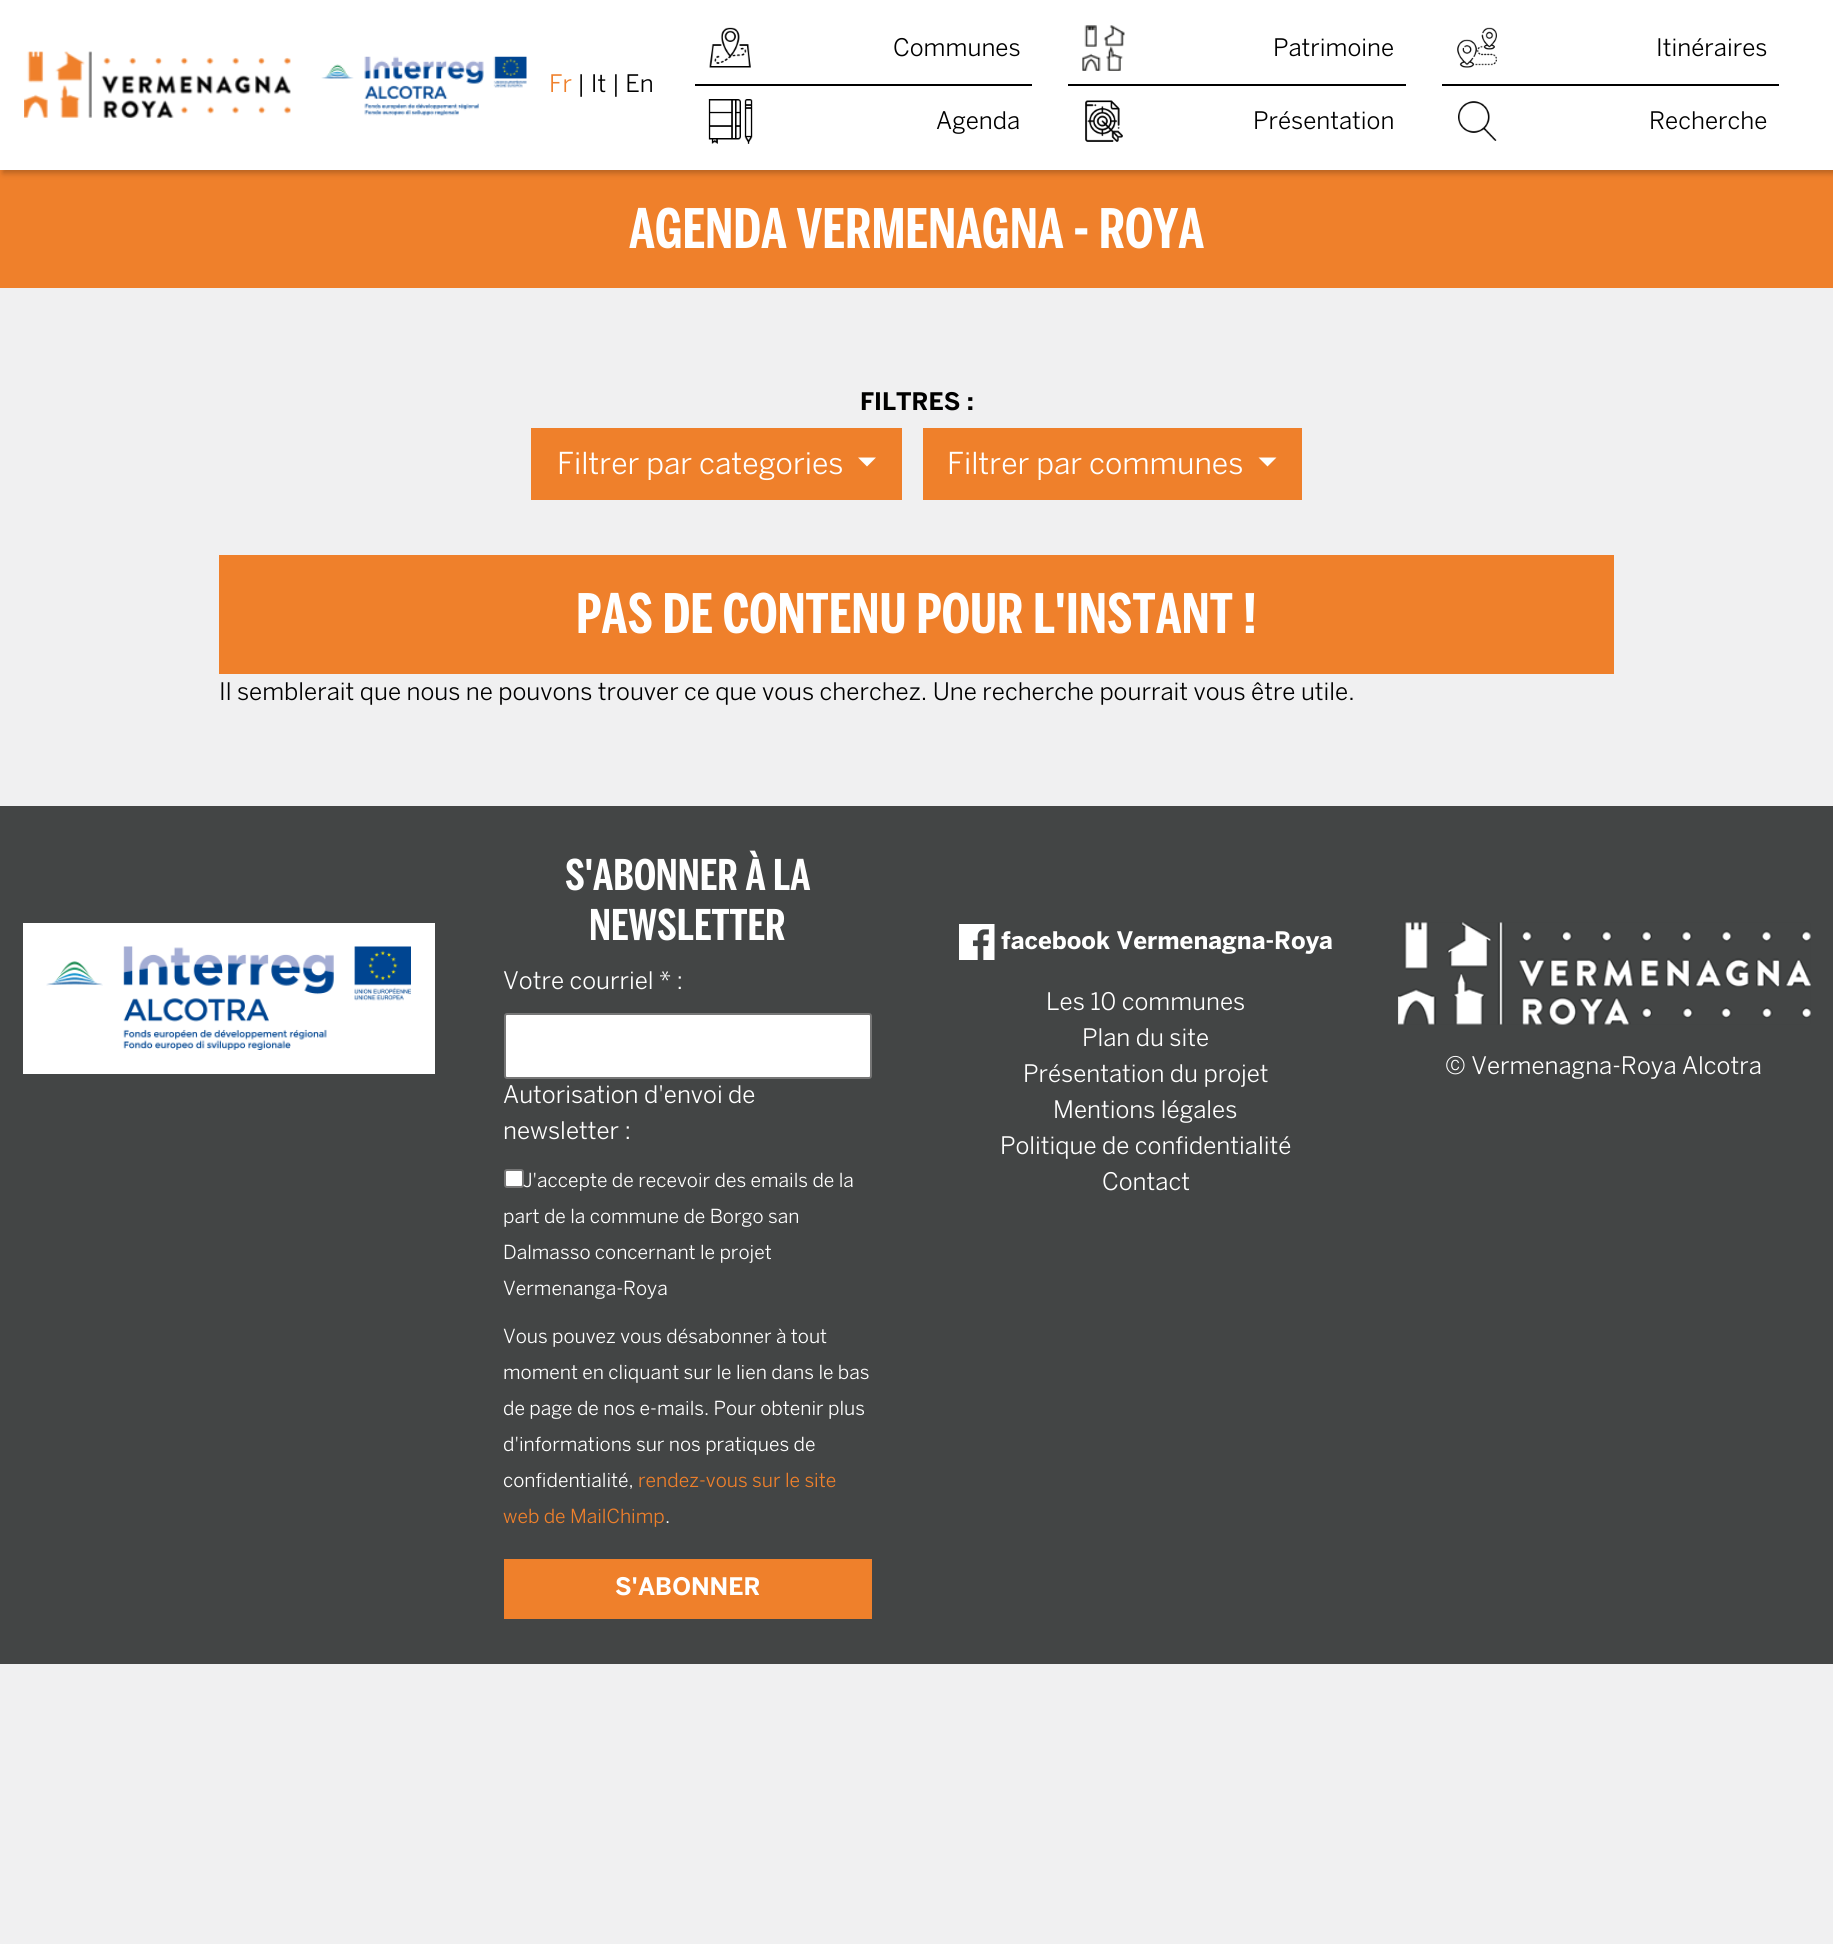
#include <cairo.h>
#include <math.h>
#include <stddef.h>

static cairo_t *ctx;

static void use_color(int r, int g, int b) {
    cairo_set_source_rgb(ctx, r / 255.0, g / 255.0, b / 255.0);
}

static void round_rect(double x, double y, double w, double h, double r) {
    cairo_new_sub_path(ctx);
    cairo_arc(ctx, x + w - r, y + h - r, r, 0, M_PI / 2);
    cairo_arc(ctx, x + r, y + h - r, r, M_PI / 2, M_PI);
    cairo_arc(ctx, x + r, y + r, r, M_PI, 1.5 * M_PI);
    cairo_arc(ctx, x + w - r, y + r, r, 1.5 * M_PI, 2 * M_PI);
    cairo_close_path(ctx);
}

static void shadow(double x, double y, double w, double h, double r, double blur, double alpha) {
    cairo_push_group_with_content(ctx, CAIRO_CONTENT_ALPHA);
    cairo_set_operator(ctx, CAIRO_OPERATOR_SOURCE);
    for (int i = 15; i >= -15 && fmin(w, h) + blur * i / 3 > 0; i -= 2) {
        double e = blur * i / 6;
        cairo_set_source_rgba(ctx, 0, 0, 0, alpha * erfc((i - 1) / 8.5) / 2);
        round_rect(x - e, y - e, w + 2 * e, h + 2 * e, fmax(0, fmin(r + e + blur * .6, fmin(w, h) / 2 + e)));
        cairo_fill(ctx);
    }
    cairo_pattern_t *soft = cairo_pop_group(ctx);
    cairo_mask(ctx, soft);
    cairo_pattern_destroy(soft);
}

static void picture(const char *path, double x, double y, double w, double h) {
    cairo_surface_t *image = cairo_image_surface_create_from_png(path);
    cairo_save(ctx);
    cairo_set_source_surface(ctx, image, x, y);
    cairo_rectangle(ctx, x, y, w, h);
    cairo_fill(ctx);
    cairo_restore(ctx);
    cairo_surface_destroy(image);
}

int main(void) {
    cairo_surface_t *surface = cairo_image_surface_create(CAIRO_FORMAT_RGB24, 1833, 1944);
    ctx = cairo_create(surface);
    cairo_font_options_t *options = cairo_font_options_create();
    cairo_font_options_set_hint_metrics(options, CAIRO_HINT_METRICS_OFF);
    cairo_font_options_set_hint_style(options, CAIRO_HINT_STYLE_NONE);
    cairo_set_font_options(ctx, options);
    cairo_set_miter_limit(ctx, 4);
    use_color(240, 240, 241);
    cairo_paint(ctx);
    use_color(239, 128, 43);
    cairo_rectangle(ctx, 0, 170, 1833, 118);
    cairo_fill(ctx);
    use_color(0, 0, 0);
    shadow(3, 3, 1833, 170, 0, 3, 0.25);
    use_color(255, 255, 255);
    cairo_rectangle(ctx, 0, 0, 1833, 170);
    cairo_fill(ctx);
    picture("img1.png", 24, 51, 503, 67);
    cairo_select_font_face(ctx, "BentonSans", CAIRO_FONT_SLANT_NORMAL, CAIRO_FONT_WEIGHT_NORMAL);
    cairo_set_font_size(ctx, 24);
    use_color(239, 128, 43);
    cairo_move_to(ctx, 549, 92);
    cairo_show_text(ctx, "Fr");
    use_color(0, 0, 0);
    cairo_move_to(ctx, 577, 92);
    cairo_show_text(ctx, "| It | En");
    cairo_rectangle(ctx, 695, 84, 337, 2);
    cairo_fill(ctx);
    picture("img2.png", 709, 27, 42, 41);
    cairo_move_to(ctx, 893, 56);
    cairo_show_text(ctx, "Communes");
    cairo_rectangle(ctx, 1068, 84, 338, 2);
    cairo_fill(ctx);
    picture("img3.png", 1082, 25, 43, 46);
    cairo_move_to(ctx, 1273, 56);
    cairo_show_text(ctx, "Patrimoine");
    cairo_rectangle(ctx, 1442, 84, 337, 2);
    cairo_fill(ctx);
    picture("img4.png", 1457, 27, 40, 41);
    cairo_move_to(ctx, 1656, 56);
    cairo_show_text(ctx, "Itinéraires");
    picture("img5.png", 708, 99, 45, 45);
    cairo_move_to(ctx, 936, 129);
    cairo_show_text(ctx, "Agenda");
    picture("img6.png", 1085, 100, 38, 42);
    cairo_move_to(ctx, 1253, 129);
    cairo_show_text(ctx, "Présentation");
    picture("img7.png", 1458, 101, 39, 40);
    cairo_move_to(ctx, 1649, 129);
    cairo_show_text(ctx, "Recherche");
    cairo_select_font_face(ctx, "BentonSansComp", CAIRO_FONT_SLANT_NORMAL, CAIRO_FONT_WEIGHT_BOLD);
    cairo_set_font_size(ctx, 54);
    use_color(255, 255, 255);
    cairo_move_to(ctx, 629, 248);
    cairo_show_text(ctx, "AGENDA VERMENAGNA - ROYA");
    cairo_select_font_face(ctx, "BentonSans", CAIRO_FONT_SLANT_NORMAL, CAIRO_FONT_WEIGHT_BOLD);
    cairo_set_font_size(ctx, 24);
    use_color(0, 0, 0);
    cairo_move_to(ctx, 860, 410);
    cairo_show_text(ctx, "FILTRES :");
    use_color(239, 128, 43);
    cairo_rectangle(ctx, 531, 428, 371, 72);
    cairo_fill(ctx);
    cairo_select_font_face(ctx, "BentonSans", CAIRO_FONT_SLANT_NORMAL, CAIRO_FONT_WEIGHT_NORMAL);
    cairo_set_font_size(ctx, 30);
    use_color(255, 255, 255);
    cairo_move_to(ctx, 557, 474);
    cairo_show_text(ctx, "Filtrer par categories");
    cairo_new_path(ctx);
    cairo_move_to(ctx, 858, 457.5);
    cairo_line_to(ctx, 876, 457.5);
    cairo_line_to(ctx, 867, 466.5);
    cairo_close_path(ctx);
    cairo_fill(ctx);
    use_color(239, 128, 43);
    cairo_rectangle(ctx, 923, 428, 379, 72);
    cairo_fill(ctx);
    use_color(255, 255, 255);
    cairo_move_to(ctx, 947, 474);
    cairo_show_text(ctx, "Filtrer par communes");
    cairo_new_path(ctx);
    cairo_move_to(ctx, 1258.5, 457.5);
    cairo_line_to(ctx, 1276.5, 457.5);
    cairo_line_to(ctx, 1267.5, 466.5);
    cairo_close_path(ctx);
    cairo_fill(ctx);
    use_color(239, 128, 43);
    cairo_rectangle(ctx, 219, 555, 1395, 119);
    cairo_fill(ctx);
    cairo_select_font_face(ctx, "BentonSansComp", CAIRO_FONT_SLANT_NORMAL, CAIRO_FONT_WEIGHT_BOLD);
    cairo_set_font_size(ctx, 54);
    use_color(255, 255, 255);
    cairo_move_to(ctx, 576, 633);
    cairo_show_text(ctx, "PAS DE CONTENU POUR L'INSTANT !");
    cairo_select_font_face(ctx, "BentonSans", CAIRO_FONT_SLANT_NORMAL, CAIRO_FONT_WEIGHT_NORMAL);
    cairo_set_font_size(ctx, 24);
    use_color(0, 0, 0);
    cairo_move_to(ctx, 219, 700);
    cairo_show_text(ctx, "Il semblerait que nous ne pouvons trouver ce que vous cherchez. Une recherche pourrait vous être utile.");
    use_color(67, 69, 69);
    cairo_rectangle(ctx, 0, 806, 1833, 858);
    cairo_fill(ctx);
    use_color(255, 255, 255);
    cairo_rectangle(ctx, 23, 923, 412, 151);
    cairo_fill(ctx);
    picture("img8.png", 46, 946, 365, 104);
    cairo_select_font_face(ctx, "BentonSansComp", CAIRO_FONT_SLANT_NORMAL, CAIRO_FONT_WEIGHT_BOLD);
    cairo_set_font_size(ctx, 42);
    cairo_move_to(ctx, 565, 890);
    cairo_show_text(ctx, "S'ABONNER À LA");
    cairo_move_to(ctx, 589, 940);
    cairo_show_text(ctx, "NEWSLETTER");
    cairo_select_font_face(ctx, "BentonSans", CAIRO_FONT_SLANT_NORMAL, CAIRO_FONT_WEIGHT_NORMAL);
    cairo_set_font_size(ctx, 24);
    cairo_move_to(ctx, 503, 989);
    cairo_show_text(ctx, "Votre courriel * :");
    round_rect(505, 1014, 366, 64, 2);
    cairo_fill_preserve(ctx);
    use_color(118, 118, 118);
    cairo_stroke(ctx);
    use_color(255, 255, 255);
    cairo_move_to(ctx, 503, 1103);
    cairo_show_text(ctx, "Autorisation d'envoi de");
    cairo_move_to(ctx, 503, 1139);
    cairo_show_text(ctx, "newsletter :");
    round_rect(505, 1170, 18, 17, 2);
    cairo_fill_preserve(ctx);
    use_color(118, 118, 118);
    cairo_stroke(ctx);
    cairo_set_font_size(ctx, 19.25);
    use_color(255, 255, 255);
    cairo_move_to(ctx, 523, 1187);
    cairo_show_text(ctx, "J'accepte de recevoir des emails de la");
    cairo_move_to(ctx, 503, 1223);
    cairo_show_text(ctx, "part de la commune de Borgo san");
    cairo_move_to(ctx, 503, 1259);
    cairo_show_text(ctx, "Dalmasso concernant le projet");
    cairo_move_to(ctx, 503, 1295);
    cairo_show_text(ctx, "Vermenanga-Roya");
    cairo_move_to(ctx, 503, 1343);
    cairo_show_text(ctx, "Vous pouvez vous désabonner à tout");
    cairo_move_to(ctx, 503, 1379);
    cairo_show_text(ctx, "moment en cliquant sur le lien dans le bas");
    cairo_move_to(ctx, 503, 1415);
    cairo_show_text(ctx, "de page de nos e-mails. Pour obtenir plus");
    cairo_move_to(ctx, 503, 1451);
    cairo_show_text(ctx, "d'informations sur nos pratiques de");
    cairo_move_to(ctx, 503, 1487);
    cairo_show_text(ctx, "confidentialité,");
    use_color(239, 128, 43);
    cairo_move_to(ctx, 638, 1487);
    cairo_show_text(ctx, "rendez-vous sur le site");
    cairo_move_to(ctx, 503, 1523);
    cairo_show_text(ctx, "web de MailChimp");
    use_color(255, 255, 255);
    cairo_move_to(ctx, 665, 1523);
    cairo_show_text(ctx, ".");
    use_color(239, 128, 43);
    cairo_rectangle(ctx, 504, 1559, 368, 60);
    cairo_fill(ctx);
    cairo_select_font_face(ctx, "BentonSans", CAIRO_FONT_SLANT_NORMAL, CAIRO_FONT_WEIGHT_BOLD);
    cairo_set_font_size(ctx, 24);
    use_color(255, 255, 255);
    cairo_move_to(ctx, 615, 1595);
    cairo_show_text(ctx, "S'ABONNER");
    picture("img9.png", 959, 924, 36, 36);
    cairo_move_to(ctx, 1001, 949);
    cairo_show_text(ctx, "facebook Vermenagna-Roya");
    cairo_select_font_face(ctx, "BentonSans", CAIRO_FONT_SLANT_NORMAL, CAIRO_FONT_WEIGHT_NORMAL);
    cairo_move_to(ctx, 1046, 1010);
    cairo_show_text(ctx, "Les 10 communes");
    cairo_move_to(ctx, 1082, 1046);
    cairo_show_text(ctx, "Plan du site");
    cairo_move_to(ctx, 1023, 1082);
    cairo_show_text(ctx, "Présentation du projet");
    cairo_move_to(ctx, 1053, 1118);
    cairo_show_text(ctx, "Mentions légales");
    cairo_move_to(ctx, 1000, 1154);
    cairo_show_text(ctx, "Politique de confidentialité");
    cairo_move_to(ctx, 1102, 1190);
    cairo_show_text(ctx, "Contact");
    picture("img10.png", 1398, 922, 413, 103);
    cairo_move_to(ctx, 1445, 1074);
    cairo_show_text(ctx, "© Vermenagna-Roya Alcotra");
    cairo_surface_write_to_png(surface, "result.png");
    cairo_font_options_destroy(options);
    cairo_destroy(ctx);
    cairo_surface_destroy(surface);
    return 0;
}
